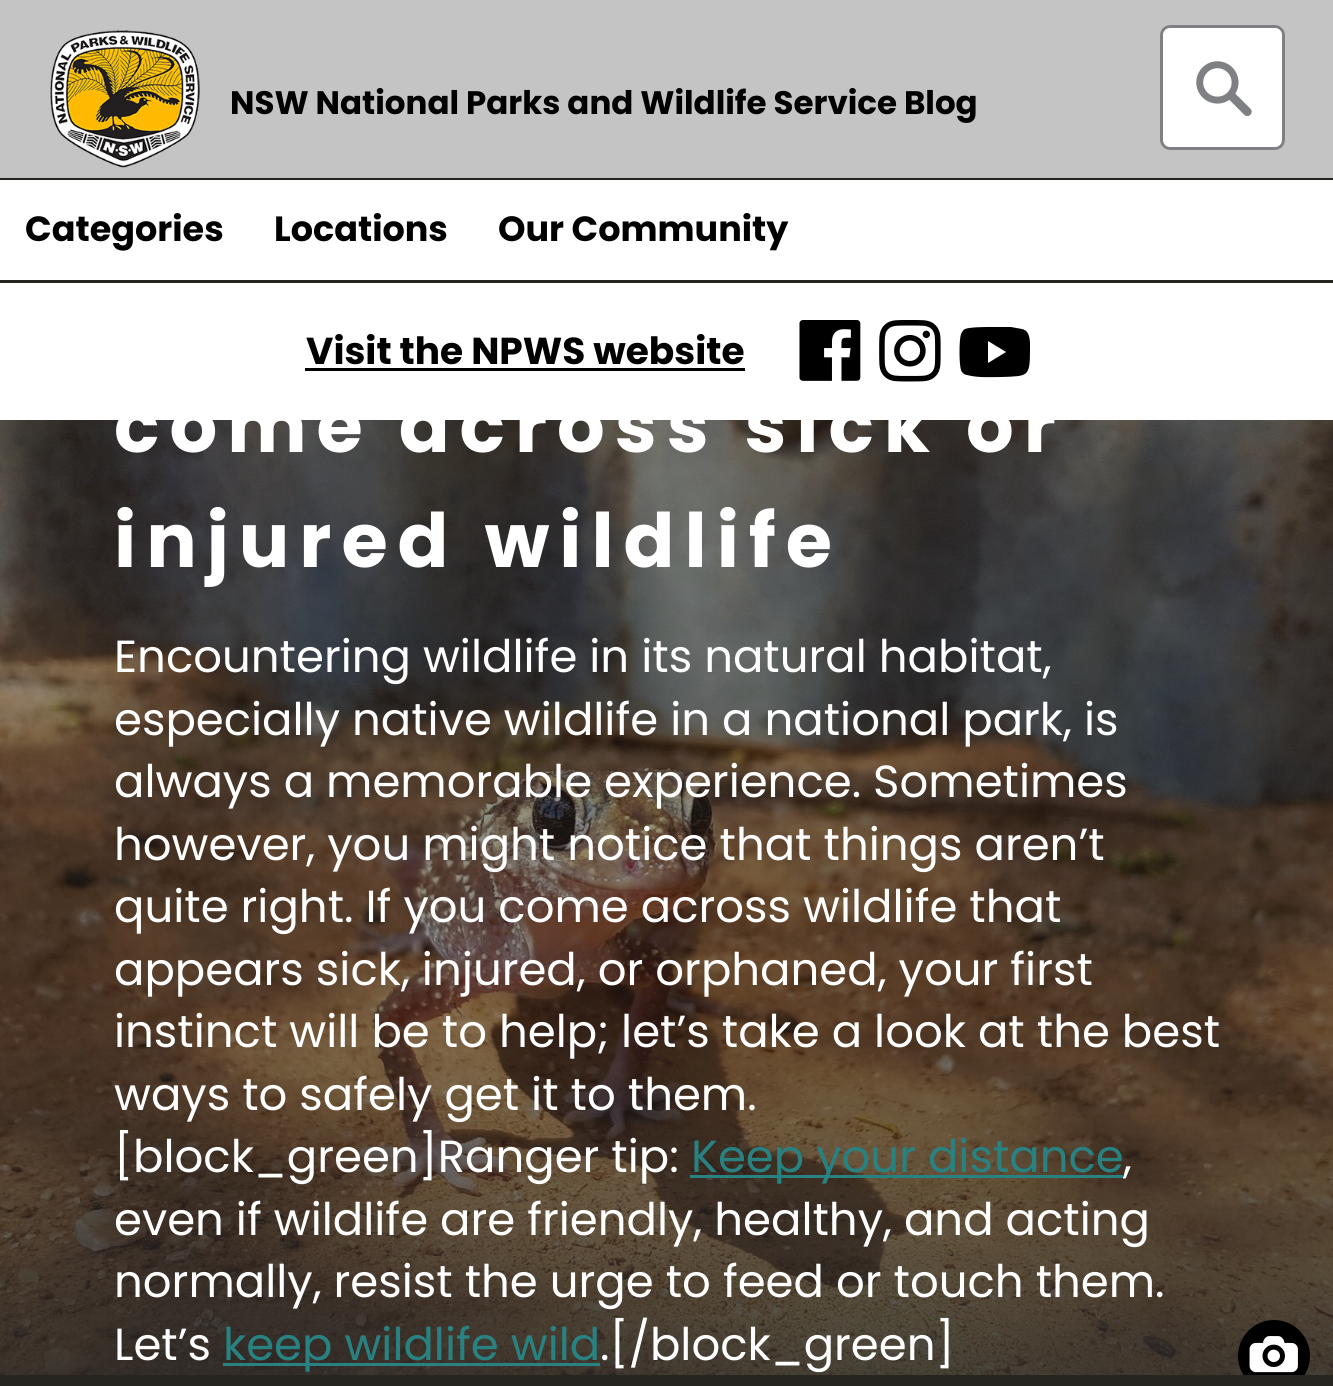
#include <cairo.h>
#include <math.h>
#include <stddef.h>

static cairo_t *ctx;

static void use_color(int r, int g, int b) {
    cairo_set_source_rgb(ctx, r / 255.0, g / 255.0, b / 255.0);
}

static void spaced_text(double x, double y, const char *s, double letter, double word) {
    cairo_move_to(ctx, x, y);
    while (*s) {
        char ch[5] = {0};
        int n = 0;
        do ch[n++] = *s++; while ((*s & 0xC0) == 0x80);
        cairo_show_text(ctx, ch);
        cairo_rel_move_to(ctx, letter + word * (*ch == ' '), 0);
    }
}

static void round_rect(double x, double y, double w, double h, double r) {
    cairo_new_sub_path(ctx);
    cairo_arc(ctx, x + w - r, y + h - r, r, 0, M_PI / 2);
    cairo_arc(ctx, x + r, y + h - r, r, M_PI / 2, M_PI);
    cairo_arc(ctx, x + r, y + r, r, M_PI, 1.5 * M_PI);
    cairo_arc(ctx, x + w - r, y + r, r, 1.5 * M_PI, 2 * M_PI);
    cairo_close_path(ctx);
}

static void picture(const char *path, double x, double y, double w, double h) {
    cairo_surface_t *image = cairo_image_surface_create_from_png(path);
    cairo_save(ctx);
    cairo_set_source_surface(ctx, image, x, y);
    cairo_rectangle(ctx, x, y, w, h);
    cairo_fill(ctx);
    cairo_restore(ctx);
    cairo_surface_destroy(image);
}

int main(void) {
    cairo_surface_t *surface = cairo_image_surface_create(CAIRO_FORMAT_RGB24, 1333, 1386);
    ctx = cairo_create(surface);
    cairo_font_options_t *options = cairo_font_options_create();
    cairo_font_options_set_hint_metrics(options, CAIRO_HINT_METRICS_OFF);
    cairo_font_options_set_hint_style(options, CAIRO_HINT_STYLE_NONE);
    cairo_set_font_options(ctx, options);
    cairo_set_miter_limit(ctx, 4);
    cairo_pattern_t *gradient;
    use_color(39, 37, 31);
    cairo_paint(ctx);
    use_color(196, 196, 196);
    cairo_rectangle(ctx, 0, 0, 1333, 178);
    cairo_fill(ctx);
    picture("img1.png", 50, 30, 150, 138);
    cairo_select_font_face(ctx, "Poppins", CAIRO_FONT_SLANT_NORMAL, CAIRO_FONT_WEIGHT_BOLD);
    cairo_set_font_size(ctx, 32.5);
    use_color(0, 0, 0);
    cairo_move_to(ctx, 230, 114);
    cairo_show_text(ctx, "NSW National Parks and Wildlife Service Blog");
    use_color(255, 255, 255);
    round_rect(1160, 25, 125, 125, 10);
    cairo_fill(ctx);
    round_rect(1161.5, 26.5, 122, 122, 8.5);
    cairo_set_source_rgba(ctx, 0.325, 0.337, 0.353, 0.75);
    cairo_set_line_width(ctx, 3);
    cairo_stroke(ctx);
    picture("img2.png", 1196, 61, 56, 55);
    use_color(255, 255, 255);
    cairo_rectangle(ctx, 0, 180, 1333, 240);
    cairo_fill(ctx);
    use_color(39, 37, 31);
    cairo_rectangle(ctx, 0, 280, 1333, 3);
    cairo_fill(ctx);
    cairo_set_font_size(ctx, 35);
    use_color(0, 0, 0);
    cairo_move_to(ctx, 25, 241);
    cairo_show_text(ctx, "Categories");
    cairo_move_to(ctx, 274, 241);
    cairo_show_text(ctx, "Locations");
    cairo_move_to(ctx, 498, 241);
    cairo_show_text(ctx, "Our Community");
    cairo_set_font_size(ctx, 37.5);
    cairo_move_to(ctx, 306, 364);
    cairo_show_text(ctx, "Visit the NPWS website");
    cairo_rectangle(ctx, 305, 368, 440, 3);
    cairo_fill(ctx);
    picture("img3.png", 799, 320, 62, 61);
    picture("img4.png", 879, 320, 62, 62);
    cairo_set_fill_rule(ctx, CAIRO_FILL_RULE_EVEN_ODD);
    cairo_new_path(ctx);
    cairo_move_to(ctx, 1022, 329);
    cairo_curve_to(ctx, 1031, 331, 1030, 343, 1030, 350);
    cairo_curve_to(ctx, 1030, 377, 1028, 376, 1002, 377);
    cairo_curve_to(ctx, 991, 377, 978, 378, 967, 375);
    cairo_curve_to(ctx, 965, 375, 962, 373, 961, 370);
    cairo_curve_to(ctx, 959, 364, 959, 340, 961, 334);
    cairo_curve_to(ctx, 962, 332, 963, 330, 965, 329);
    cairo_curve_to(ctx, 970, 327, 985, 327, 991, 327);
    cairo_line_to(ctx, 1011, 327);
    cairo_close_path(ctx);
    cairo_move_to(ctx, 1006, 352);
    cairo_line_to(ctx, 988, 363);
    cairo_line_to(ctx, 988, 341);
    cairo_close_path(ctx);
    cairo_fill(ctx);
    picture("img5.png", 0, 420, 1333, 955);
    cairo_set_font_size(ctx, 75);
    use_color(255, 255, 255);
    spaced_text(114, 452, "come across sick or", 10, 0);
    spaced_text(114, 567, "injured wildlife", 10, 0);
    cairo_select_font_face(ctx, "Poppins", CAIRO_FONT_SLANT_NORMAL, CAIRO_FONT_WEIGHT_NORMAL);
    cairo_set_font_size(ctx, 45);
    cairo_move_to(ctx, 114, 672);
    cairo_show_text(ctx, "Encountering wildlife in its natural habitat,");
    cairo_move_to(ctx, 114, 735);
    cairo_show_text(ctx, "especially native wildlife in a national park, is");
    cairo_move_to(ctx, 114, 797);
    cairo_show_text(ctx, "always a memorable experience. Sometimes");
    cairo_move_to(ctx, 114, 860);
    cairo_show_text(ctx, "however, you might notice that things aren’t");
    cairo_move_to(ctx, 114, 922);
    cairo_show_text(ctx, "quite right. If you come across wildlife that");
    cairo_move_to(ctx, 114, 985);
    cairo_show_text(ctx, "appears sick, injured, or orphaned, your first");
    gradient = cairo_pattern_create_linear(668, 420, 668, 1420);
    cairo_pattern_add_color_stop_rgba(gradient, 0.6, 0.169, 0.169, 0.169, 0);
    cairo_pattern_add_color_stop_rgba(gradient, 1, 0.169, 0.169, 0.169, 0.8);
    cairo_set_source(ctx, gradient);
    cairo_pattern_destroy(gradient);
    cairo_rectangle(ctx, 0, 1033, 1333, 342);
    cairo_fill(ctx);
    use_color(255, 255, 255);
    cairo_move_to(ctx, 114, 1047);
    cairo_show_text(ctx, "instinct will be to help; let’s take a look at the best");
    cairo_move_to(ctx, 114, 1110);
    cairo_show_text(ctx, "ways to safely get it to them.");
    cairo_move_to(ctx, 114, 1172);
    cairo_show_text(ctx, "[block_green]Ranger tip:");
    use_color(40, 130, 130);
    cairo_rectangle(ctx, 690, 1175, 433, 3);
    cairo_fill(ctx);
    cairo_move_to(ctx, 691, 1172);
    cairo_show_text(ctx, "Keep your distance");
    use_color(255, 255, 255);
    cairo_move_to(ctx, 1123, 1172);
    cairo_show_text(ctx, ",");
    cairo_move_to(ctx, 114, 1235);
    cairo_show_text(ctx, "even if wildlife are friendly, healthy, and acting");
    cairo_move_to(ctx, 114, 1297);
    cairo_show_text(ctx, "normally, resist the urge to feed or touch them.");
    cairo_move_to(ctx, 114, 1360);
    cairo_show_text(ctx, "Let’s");
    use_color(40, 130, 130);
    cairo_rectangle(ctx, 223, 1363, 377, 3);
    cairo_fill(ctx);
    cairo_move_to(ctx, 223, 1360);
    cairo_show_text(ctx, "keep wildlife wild");
    use_color(255, 255, 255);
    cairo_move_to(ctx, 600, 1360);
    cairo_show_text(ctx, ".[/block_green]");
    picture("img6.png", 1238, 1320, 72, 55);
    cairo_surface_write_to_png(surface, "result.png");
    cairo_font_options_destroy(options);
    cairo_destroy(ctx);
    cairo_surface_destroy(surface);
    return 0;
}
